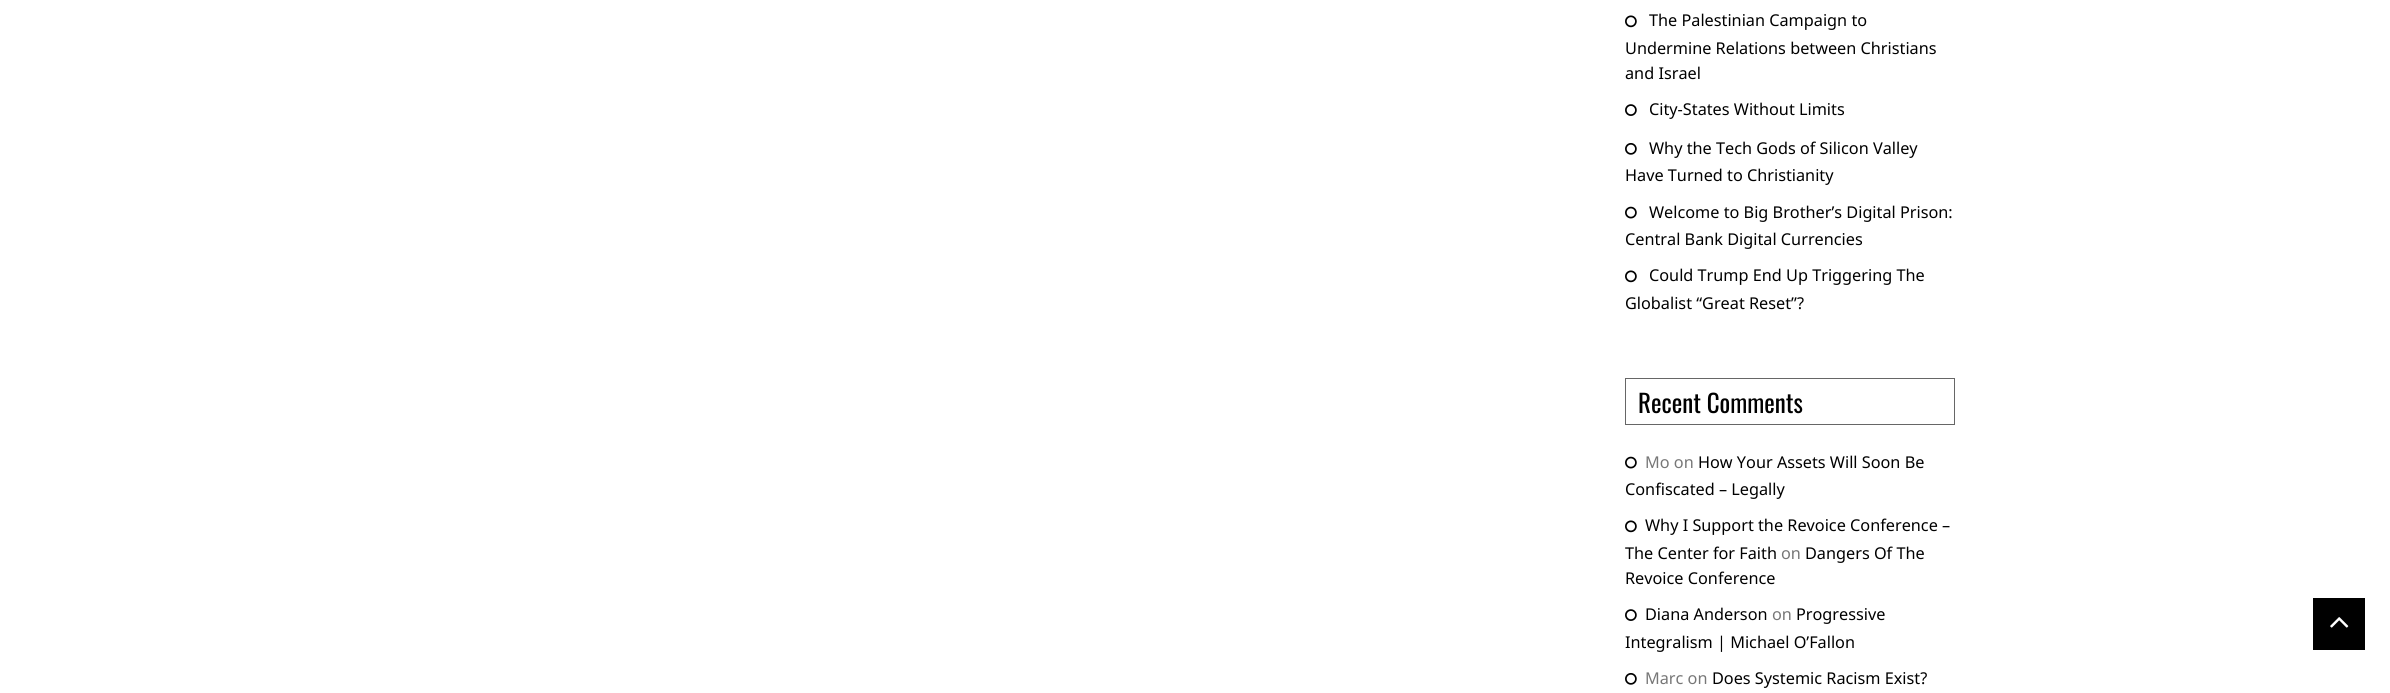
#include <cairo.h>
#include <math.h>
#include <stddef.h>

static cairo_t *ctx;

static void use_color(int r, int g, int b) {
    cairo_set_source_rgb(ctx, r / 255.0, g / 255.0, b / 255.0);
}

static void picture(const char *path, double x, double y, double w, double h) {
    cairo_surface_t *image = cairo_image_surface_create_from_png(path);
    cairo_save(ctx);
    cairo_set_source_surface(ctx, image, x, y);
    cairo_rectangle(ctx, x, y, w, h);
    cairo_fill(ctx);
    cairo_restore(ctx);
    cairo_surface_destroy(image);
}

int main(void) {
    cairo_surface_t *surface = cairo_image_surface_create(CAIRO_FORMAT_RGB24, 2390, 693);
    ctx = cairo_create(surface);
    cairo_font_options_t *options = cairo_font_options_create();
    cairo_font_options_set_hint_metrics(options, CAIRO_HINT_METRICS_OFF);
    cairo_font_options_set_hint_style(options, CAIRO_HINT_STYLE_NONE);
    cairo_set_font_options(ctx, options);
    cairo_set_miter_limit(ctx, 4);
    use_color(255, 255, 255);
    cairo_paint(ctx);
    picture("img1.png", 1625, 15, 12, 13);
    cairo_select_font_face(ctx, "Noto Sans", CAIRO_FONT_SLANT_NORMAL, CAIRO_FONT_WEIGHT_NORMAL);
    cairo_set_font_size(ctx, 16.25);
    use_color(0, 0, 0);
    cairo_move_to(ctx, 1649, 26);
    cairo_show_text(ctx, "The Palestinian Campaign to");
    cairo_move_to(ctx, 1625, 54);
    cairo_show_text(ctx, "Undermine Relations between Christians");
    cairo_move_to(ctx, 1625, 79);
    cairo_show_text(ctx, "and Israel");
    picture("img2.png", 1625, 104, 12, 12);
    cairo_move_to(ctx, 1649, 115);
    cairo_show_text(ctx, "City-States Without Limits");
    picture("img3.png", 1625, 143, 12, 12);
    cairo_move_to(ctx, 1649, 154);
    cairo_show_text(ctx, "Why the Tech Gods of Silicon Valley");
    cairo_move_to(ctx, 1625, 181);
    cairo_show_text(ctx, "Have Turned to Christianity");
    picture("img4.png", 1625, 206, 12, 13);
    cairo_move_to(ctx, 1649, 218);
    cairo_show_text(ctx, "Welcome to Big Brother’s Digital Prison:");
    cairo_move_to(ctx, 1625, 245);
    cairo_show_text(ctx, "Central Bank Digital Currencies");
    picture("img1.png", 1625, 270, 12, 13);
    cairo_move_to(ctx, 1649, 281);
    cairo_show_text(ctx, "Could Trump End Up Triggering The");
    cairo_move_to(ctx, 1625, 309);
    cairo_show_text(ctx, "Globalist “Great Reset”?");
    cairo_rectangle(ctx, 1625.5, 378.5, 329, 46);
    use_color(102, 102, 102);
    cairo_set_line_width(ctx, 1);
    cairo_stroke(ctx);
    cairo_select_font_face(ctx, "Oswald", CAIRO_FONT_SLANT_NORMAL, CAIRO_FONT_WEIGHT_NORMAL);
    cairo_set_font_size(ctx, 25);
    use_color(0, 0, 0);
    cairo_move_to(ctx, 1638, 413);
    cairo_show_text(ctx, "Recent Comments");
    picture("img4.png", 1625, 456, 12, 13);
    cairo_select_font_face(ctx, "Noto Sans", CAIRO_FONT_SLANT_NORMAL, CAIRO_FONT_WEIGHT_NORMAL);
    cairo_set_font_size(ctx, 16.25);
    use_color(119, 119, 119);
    cairo_move_to(ctx, 1645, 468);
    cairo_show_text(ctx, "Mo on");
    use_color(0, 0, 0);
    cairo_move_to(ctx, 1698, 468);
    cairo_show_text(ctx, "How Your Assets Will Soon Be");
    cairo_move_to(ctx, 1625, 495);
    cairo_show_text(ctx, "Confiscated – Legally");
    picture("img1.png", 1625, 520, 12, 13);
    cairo_move_to(ctx, 1645, 531);
    cairo_show_text(ctx, "Why I Support the Revoice Conference –");
    cairo_move_to(ctx, 1625, 559);
    cairo_show_text(ctx, "The Center for Faith");
    use_color(119, 119, 119);
    cairo_move_to(ctx, 1781, 559);
    cairo_show_text(ctx, "on");
    use_color(0, 0, 0);
    cairo_move_to(ctx, 1805, 559);
    cairo_show_text(ctx, "Dangers Of The");
    cairo_move_to(ctx, 1625, 584);
    cairo_show_text(ctx, "Revoice Conference");
    picture("img2.png", 1625, 609, 12, 12);
    cairo_move_to(ctx, 1645, 620);
    cairo_show_text(ctx, "Diana Anderson");
    use_color(119, 119, 119);
    cairo_move_to(ctx, 1772, 620);
    cairo_show_text(ctx, "on");
    use_color(0, 0, 0);
    cairo_move_to(ctx, 1796, 620);
    cairo_show_text(ctx, "Progressive");
    cairo_move_to(ctx, 1625, 648);
    cairo_show_text(ctx, "Integralism | Michael O’Fallon");
    picture("img3.png", 1625, 673, 12, 12);
    use_color(119, 119, 119);
    cairo_move_to(ctx, 1645, 684);
    cairo_show_text(ctx, "Marc on");
    use_color(0, 0, 0);
    cairo_move_to(ctx, 1712, 684);
    cairo_show_text(ctx, "Does Systemic Racism Exist?");
    cairo_rectangle(ctx, 2313, 598, 52, 52);
    cairo_fill(ctx);
    picture("img5.png", 2330, 617, 19, 11);
    cairo_surface_write_to_png(surface, "result.png");
    cairo_font_options_destroy(options);
    cairo_destroy(ctx);
    cairo_surface_destroy(surface);
    return 0;
}
